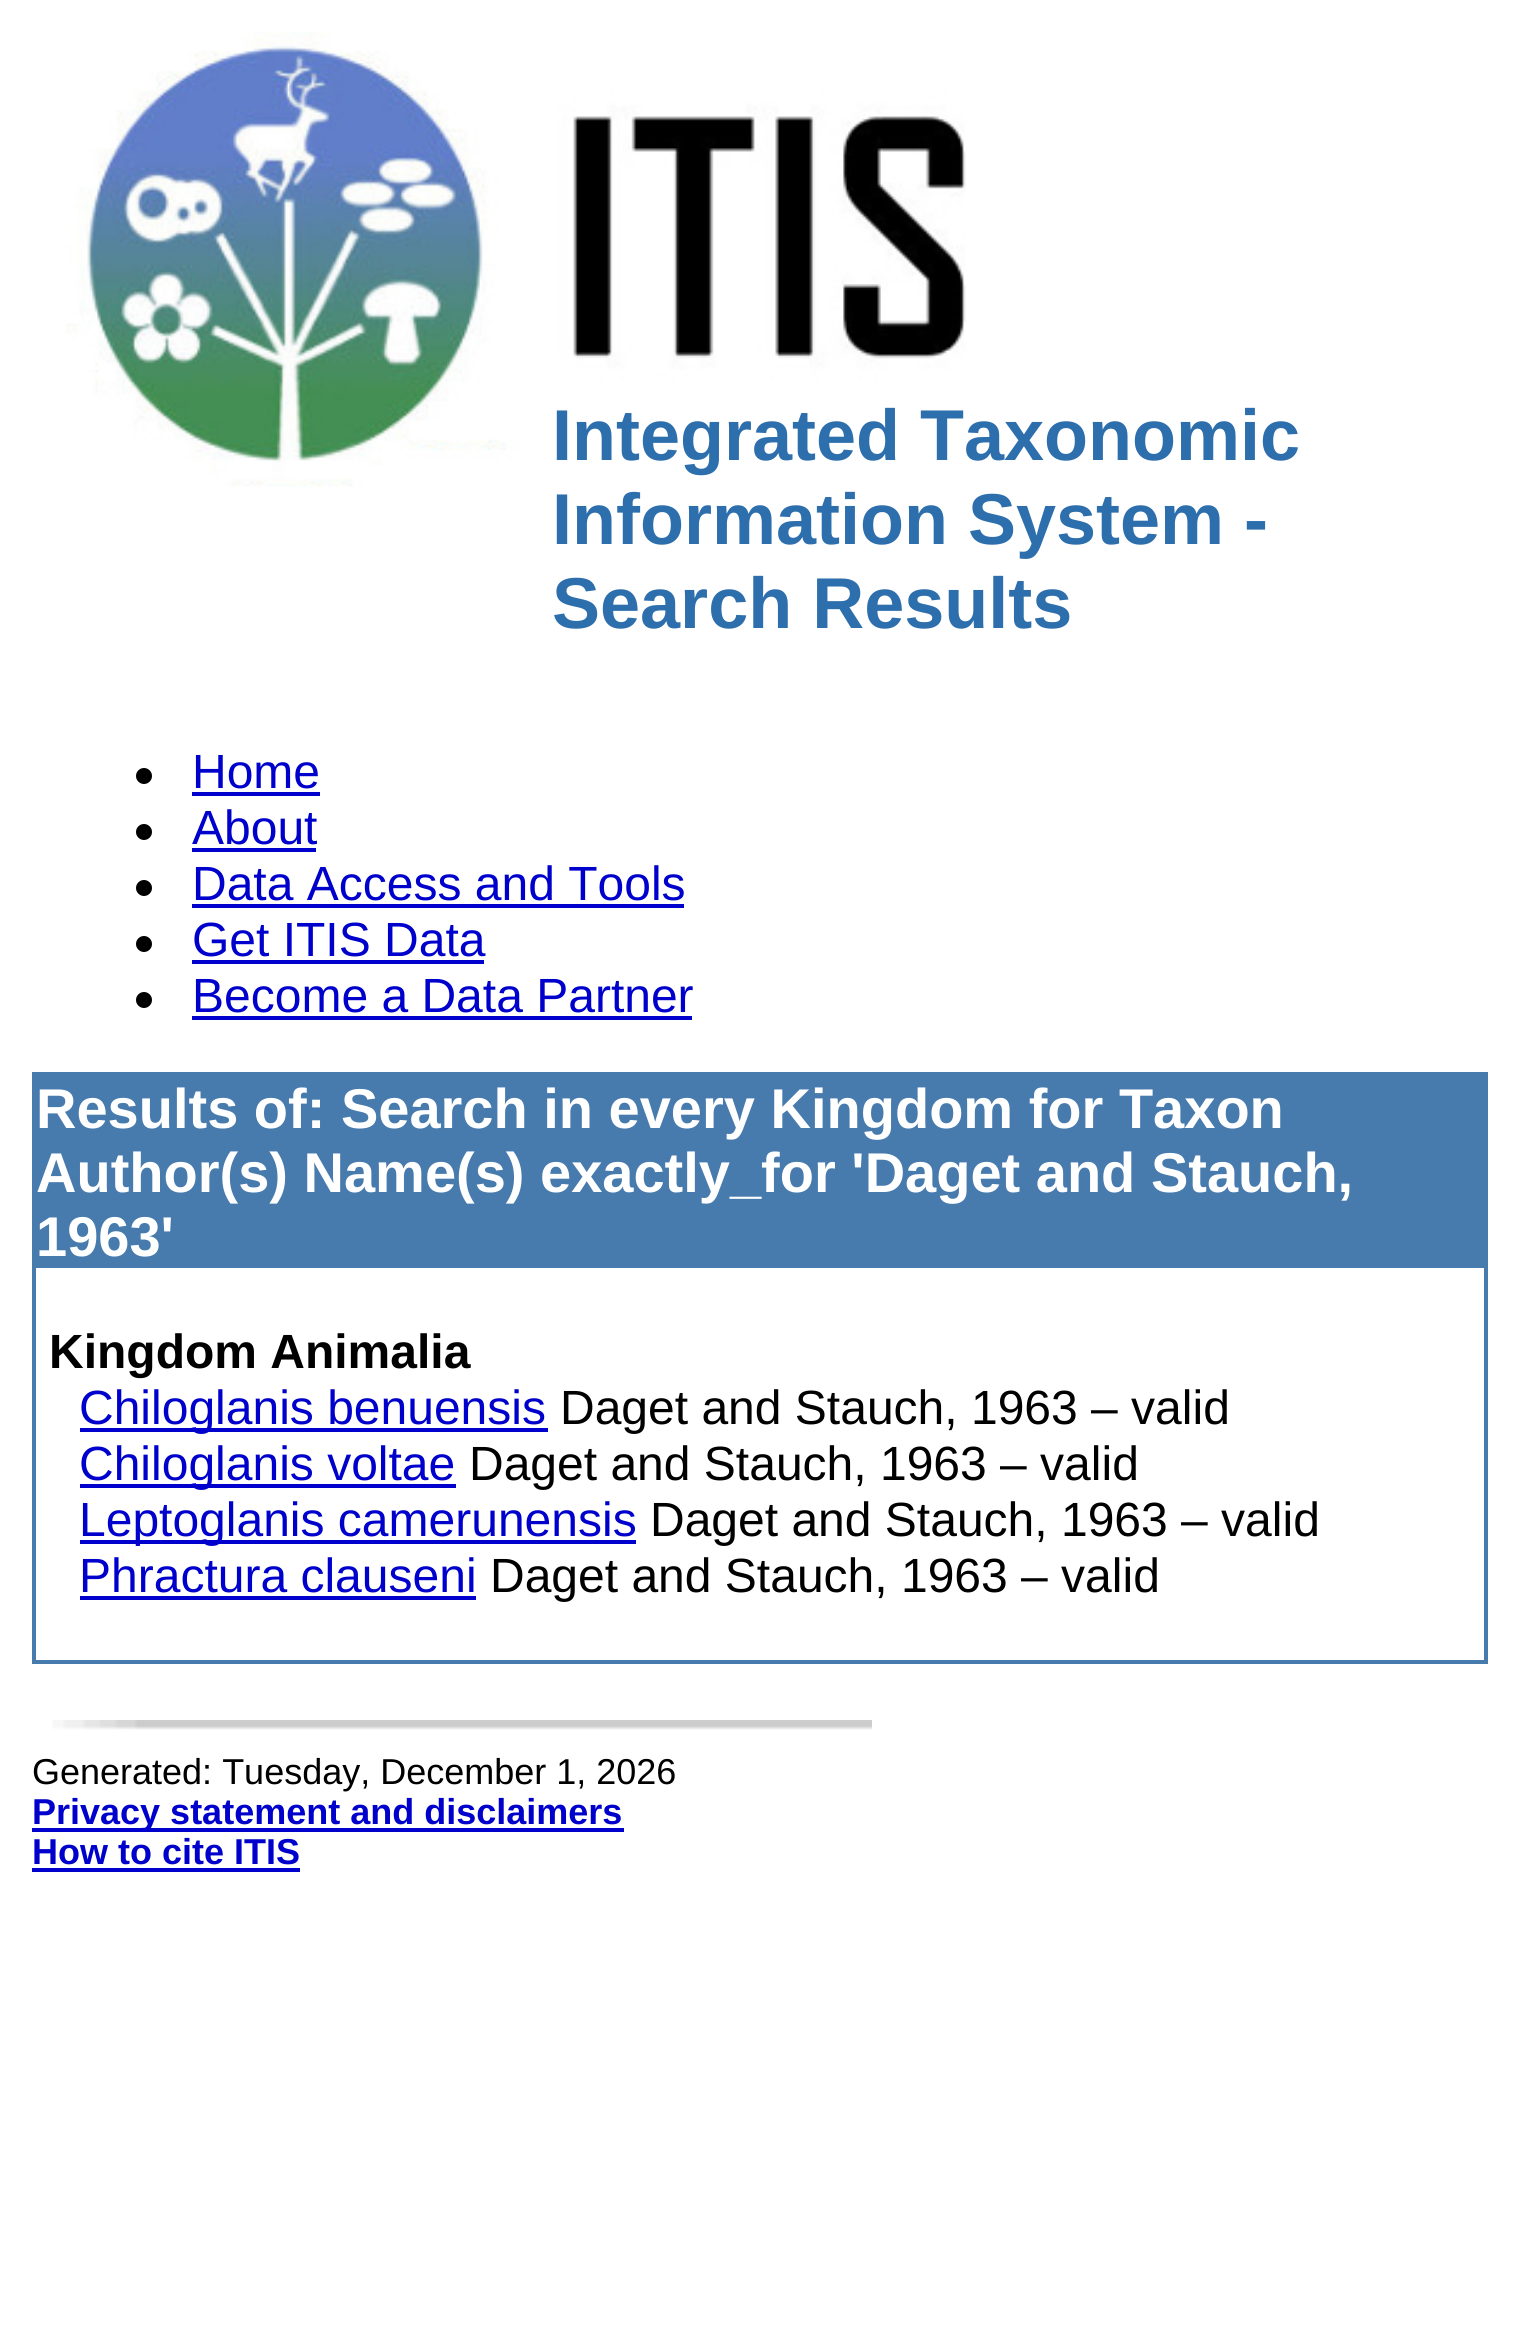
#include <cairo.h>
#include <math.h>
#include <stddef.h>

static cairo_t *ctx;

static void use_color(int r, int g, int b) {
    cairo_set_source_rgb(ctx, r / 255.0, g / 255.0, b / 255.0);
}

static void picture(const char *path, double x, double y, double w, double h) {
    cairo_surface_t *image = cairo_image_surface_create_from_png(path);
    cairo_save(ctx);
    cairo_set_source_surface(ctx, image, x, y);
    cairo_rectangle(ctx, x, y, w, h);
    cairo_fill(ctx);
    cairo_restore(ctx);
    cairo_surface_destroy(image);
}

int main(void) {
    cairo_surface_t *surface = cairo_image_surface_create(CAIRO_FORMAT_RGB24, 1519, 2330);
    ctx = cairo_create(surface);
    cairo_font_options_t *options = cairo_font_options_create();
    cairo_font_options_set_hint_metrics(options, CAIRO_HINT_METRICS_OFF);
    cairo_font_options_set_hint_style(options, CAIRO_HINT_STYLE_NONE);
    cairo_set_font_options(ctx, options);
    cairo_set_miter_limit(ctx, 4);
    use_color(255, 255, 255);
    cairo_paint(ctx);
    picture("img1.png", 65, 32, 901, 455);
    cairo_select_font_face(ctx, "Liberation Sans", CAIRO_FONT_SLANT_NORMAL, CAIRO_FONT_WEIGHT_BOLD);
    cairo_set_font_size(ctx, 72);
    use_color(45, 110, 172);
    cairo_move_to(ctx, 552, 460);
    cairo_show_text(ctx, "Integrated Taxonomic");
    cairo_move_to(ctx, 552, 544);
    cairo_show_text(ctx, "Information System -");
    cairo_move_to(ctx, 552, 628);
    cairo_show_text(ctx, "Search Results");
    use_color(0, 0, 0);
    cairo_new_path(ctx);
    cairo_arc(ctx, 144, 776, 8, 0, 2 * M_PI);
    cairo_fill(ctx);
    cairo_select_font_face(ctx, "Liberation Sans", CAIRO_FONT_SLANT_NORMAL, CAIRO_FONT_WEIGHT_NORMAL);
    cairo_set_font_size(ctx, 48);
    use_color(0, 0, 204);
    cairo_move_to(ctx, 192, 788);
    cairo_show_text(ctx, "Home");
    cairo_rectangle(ctx, 192, 792, 128, 4);
    cairo_fill(ctx);
    use_color(0, 0, 0);
    cairo_arc(ctx, 144, 832, 8, 0, 2 * M_PI);
    cairo_fill(ctx);
    use_color(0, 0, 204);
    cairo_move_to(ctx, 192, 844);
    cairo_show_text(ctx, "About");
    cairo_rectangle(ctx, 192, 848, 124, 4);
    cairo_fill(ctx);
    use_color(0, 0, 0);
    cairo_arc(ctx, 144, 888, 8, 0, 2 * M_PI);
    cairo_fill(ctx);
    use_color(0, 0, 204);
    cairo_move_to(ctx, 192, 900);
    cairo_show_text(ctx, "Data Access and Tools");
    cairo_rectangle(ctx, 192, 904, 492, 4);
    cairo_fill(ctx);
    use_color(0, 0, 0);
    cairo_arc(ctx, 144, 944, 8, 0, 2 * M_PI);
    cairo_fill(ctx);
    use_color(0, 0, 204);
    cairo_move_to(ctx, 192, 956);
    cairo_show_text(ctx, "Get ITIS Data");
    cairo_rectangle(ctx, 192, 960, 292, 4);
    cairo_fill(ctx);
    use_color(0, 0, 0);
    cairo_arc(ctx, 144, 1000, 8, 0, 2 * M_PI);
    cairo_fill(ctx);
    use_color(0, 0, 204);
    cairo_move_to(ctx, 192, 1012);
    cairo_show_text(ctx, "Become a Data Partner");
    cairo_rectangle(ctx, 192, 1016, 500, 4);
    cairo_fill(ctx);
    use_color(71, 122, 173);
    cairo_rectangle(ctx, 32, 1072, 1456, 592);
    cairo_fill(ctx);
    cairo_select_font_face(ctx, "Liberation Sans", CAIRO_FONT_SLANT_NORMAL, CAIRO_FONT_WEIGHT_BOLD);
    cairo_set_font_size(ctx, 56);
    use_color(255, 255, 255);
    cairo_move_to(ctx, 36, 1128);
    cairo_show_text(ctx, "Results of: Search in every Kingdom for Taxon");
    cairo_move_to(ctx, 36, 1192);
    cairo_show_text(ctx, "Author(s) Name(s) exactly_for 'Daget and Stauch,");
    cairo_move_to(ctx, 36, 1256);
    cairo_show_text(ctx, "1963'");
    cairo_rectangle(ctx, 36, 1268, 1448, 392);
    cairo_fill(ctx);
    cairo_set_font_size(ctx, 48);
    use_color(0, 0, 0);
    cairo_move_to(ctx, 49, 1368);
    cairo_show_text(ctx, "Kingdom Animalia");
    use_color(0, 0, 204);
    cairo_rectangle(ctx, 80, 1428, 468, 4);
    cairo_fill(ctx);
    cairo_select_font_face(ctx, "Liberation Sans", CAIRO_FONT_SLANT_NORMAL, CAIRO_FONT_WEIGHT_NORMAL);
    cairo_move_to(ctx, 79, 1424);
    cairo_show_text(ctx, "Chiloglanis benuensis");
    use_color(0, 0, 0);
    cairo_move_to(ctx, 560, 1424);
    cairo_show_text(ctx, "Daget and Stauch, 1963 – valid");
    use_color(0, 0, 204);
    cairo_rectangle(ctx, 80, 1484, 376, 4);
    cairo_fill(ctx);
    cairo_move_to(ctx, 79, 1480);
    cairo_show_text(ctx, "Chiloglanis voltae");
    use_color(0, 0, 0);
    cairo_move_to(ctx, 469, 1480);
    cairo_show_text(ctx, "Daget and Stauch, 1963 – valid");
    use_color(0, 0, 204);
    cairo_rectangle(ctx, 80, 1540, 556, 4);
    cairo_fill(ctx);
    cairo_move_to(ctx, 79, 1536);
    cairo_show_text(ctx, "Leptoglanis camerunensis");
    use_color(0, 0, 0);
    cairo_move_to(ctx, 650, 1536);
    cairo_show_text(ctx, "Daget and Stauch, 1963 – valid");
    use_color(0, 0, 204);
    cairo_move_to(ctx, 79, 1592);
    cairo_show_text(ctx, "Phractura clauseni");
    cairo_rectangle(ctx, 80, 1596, 396, 4);
    cairo_fill(ctx);
    use_color(0, 0, 0);
    cairo_move_to(ctx, 490, 1592);
    cairo_show_text(ctx, "Daget and Stauch, 1963 – valid");
    picture("img2.png", 52, 1720, 820, 10);
    cairo_set_font_size(ctx, 36);
    cairo_move_to(ctx, 32, 1784);
    cairo_show_text(ctx, "Generated: Tuesday, December 1, 2026");
    use_color(0, 0, 204);
    cairo_rectangle(ctx, 32, 1828, 592, 4);
    cairo_fill(ctx);
    cairo_select_font_face(ctx, "Liberation Sans", CAIRO_FONT_SLANT_NORMAL, CAIRO_FONT_WEIGHT_BOLD);
    cairo_move_to(ctx, 32, 1824);
    cairo_show_text(ctx, "Privacy statement and disclaimers");
    cairo_move_to(ctx, 32, 1864);
    cairo_show_text(ctx, "How to cite ITIS");
    cairo_rectangle(ctx, 32, 1868, 268, 4);
    cairo_fill(ctx);
    cairo_surface_write_to_png(surface, "result.png");
    cairo_font_options_destroy(options);
    cairo_destroy(ctx);
    cairo_surface_destroy(surface);
    return 0;
}
